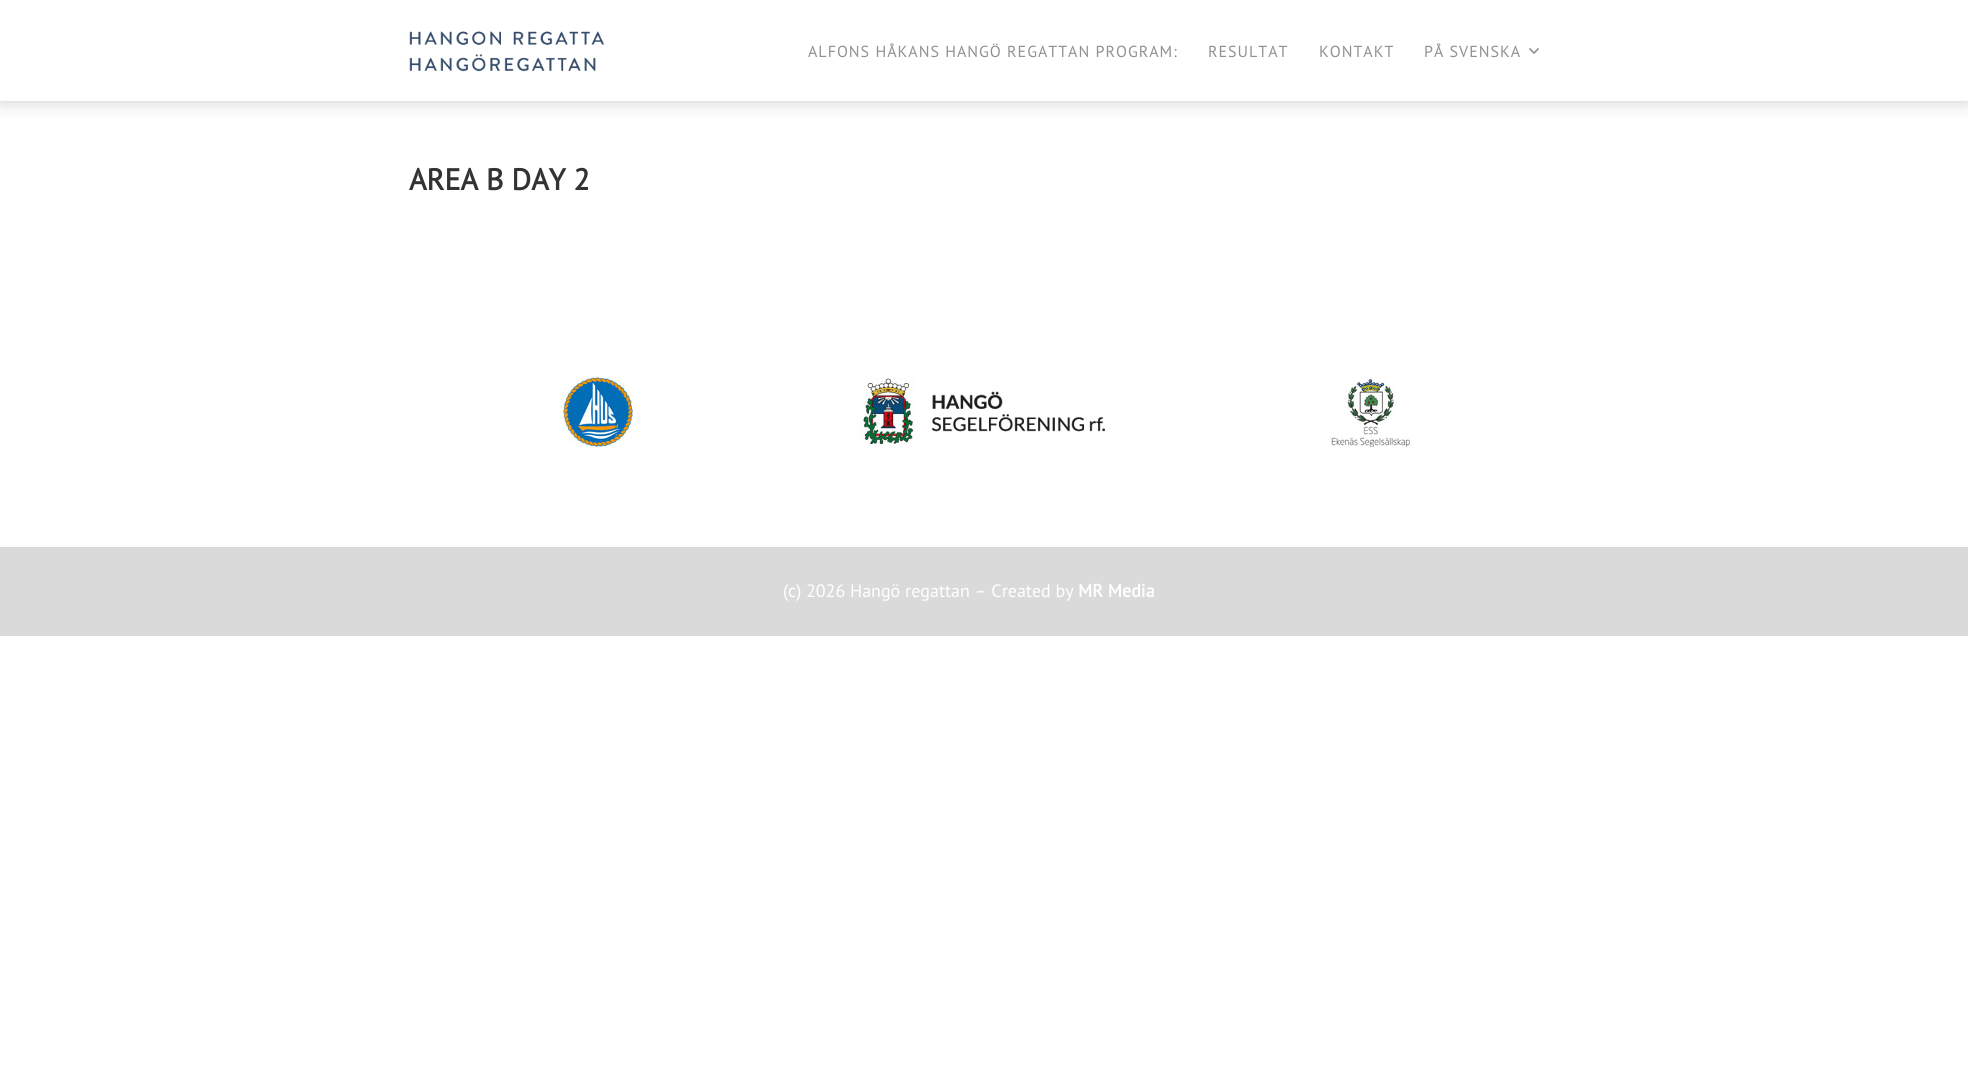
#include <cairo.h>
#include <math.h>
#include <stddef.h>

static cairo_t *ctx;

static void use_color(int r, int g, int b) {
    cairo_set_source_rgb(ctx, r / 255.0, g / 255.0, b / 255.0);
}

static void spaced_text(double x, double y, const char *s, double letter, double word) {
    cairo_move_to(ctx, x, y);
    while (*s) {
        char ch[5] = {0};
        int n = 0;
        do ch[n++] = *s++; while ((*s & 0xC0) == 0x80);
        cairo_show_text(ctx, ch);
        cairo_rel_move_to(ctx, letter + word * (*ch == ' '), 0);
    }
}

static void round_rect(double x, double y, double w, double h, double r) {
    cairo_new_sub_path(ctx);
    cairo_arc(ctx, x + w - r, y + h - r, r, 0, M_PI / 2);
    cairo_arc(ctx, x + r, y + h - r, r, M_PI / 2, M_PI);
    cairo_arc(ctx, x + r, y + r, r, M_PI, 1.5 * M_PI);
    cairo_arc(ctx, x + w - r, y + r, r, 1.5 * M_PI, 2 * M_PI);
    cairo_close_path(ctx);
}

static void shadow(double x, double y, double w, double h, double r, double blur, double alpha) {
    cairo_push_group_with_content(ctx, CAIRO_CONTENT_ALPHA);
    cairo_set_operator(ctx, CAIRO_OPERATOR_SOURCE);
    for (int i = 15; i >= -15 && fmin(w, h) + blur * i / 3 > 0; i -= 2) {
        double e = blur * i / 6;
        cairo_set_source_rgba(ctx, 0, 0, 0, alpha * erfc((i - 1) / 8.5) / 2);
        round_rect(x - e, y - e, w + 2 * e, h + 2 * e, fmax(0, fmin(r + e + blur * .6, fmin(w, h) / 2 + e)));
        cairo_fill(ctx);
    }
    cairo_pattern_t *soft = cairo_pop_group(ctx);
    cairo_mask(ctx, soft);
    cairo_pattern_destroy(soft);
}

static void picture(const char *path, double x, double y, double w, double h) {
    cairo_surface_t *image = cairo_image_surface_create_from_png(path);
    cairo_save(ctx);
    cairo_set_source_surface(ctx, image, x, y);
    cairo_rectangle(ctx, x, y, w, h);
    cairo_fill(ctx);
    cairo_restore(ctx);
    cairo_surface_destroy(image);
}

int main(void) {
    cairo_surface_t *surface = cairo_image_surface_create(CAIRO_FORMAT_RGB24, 1968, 1072);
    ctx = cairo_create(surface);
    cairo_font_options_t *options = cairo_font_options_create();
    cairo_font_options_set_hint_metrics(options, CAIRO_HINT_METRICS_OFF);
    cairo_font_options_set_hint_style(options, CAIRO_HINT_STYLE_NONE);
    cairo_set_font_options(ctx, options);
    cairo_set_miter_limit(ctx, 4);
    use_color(255, 255, 255);
    cairo_paint(ctx);
    cairo_save(ctx);
    cairo_rectangle(ctx, 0, 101, 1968, 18);
    cairo_clip(ctx);
    use_color(203, 203, 203);
    shadow(0, 0, 1968, 101, 0, 9, 1);
    cairo_restore(ctx);
    picture("img1.png", 409, 31, 195, 41);
    cairo_select_font_face(ctx, "PT Sans", CAIRO_FONT_SLANT_NORMAL, CAIRO_FONT_WEIGHT_NORMAL);
    cairo_set_font_size(ctx, 16);
    use_color(145, 145, 145);
    spaced_text(808, 57, "ALFONS HÅKANS HANGÖ REGATTAN PROGRAM:", 1, 0);
    spaced_text(1208, 57, "RESULTAT", 1, 0);
    spaced_text(1319, 57, "KONTAKT", 1, 0);
    spaced_text(1424, 57, "PÅ SVENSKA", 1, 0);
    picture("img2.png", 1529, 48, 10, 6);
    cairo_select_font_face(ctx, "PT Sans", CAIRO_FONT_SLANT_NORMAL, CAIRO_FONT_WEIGHT_BOLD);
    cairo_set_font_size(ctx, 30);
    use_color(51, 51, 51);
    cairo_move_to(ctx, 409, 190);
    cairo_show_text(ctx, "AREA B DAY 2");
    picture("img3.png", 561, 377, 72, 70);
    picture("img4.png", 859, 377, 246, 70);
    picture("img5.png", 1329, 377, 83, 70);
    use_color(218, 218, 218);
    cairo_rectangle(ctx, 0, 547, 1968, 89);
    cairo_fill(ctx);
    cairo_select_font_face(ctx, "PT Sans", CAIRO_FONT_SLANT_NORMAL, CAIRO_FONT_WEIGHT_NORMAL);
    cairo_set_font_size(ctx, 18);
    use_color(255, 255, 255);
    cairo_move_to(ctx, 783, 597);
    cairo_show_text(ctx, "(c) 2026 Hangö regattan – Created by");
    cairo_select_font_face(ctx, "PT Sans", CAIRO_FONT_SLANT_NORMAL, CAIRO_FONT_WEIGHT_BOLD);
    cairo_move_to(ctx, 1078, 597);
    cairo_show_text(ctx, "MR Media");
    cairo_surface_write_to_png(surface, "result.png");
    cairo_font_options_destroy(options);
    cairo_destroy(ctx);
    cairo_surface_destroy(surface);
    return 0;
}
